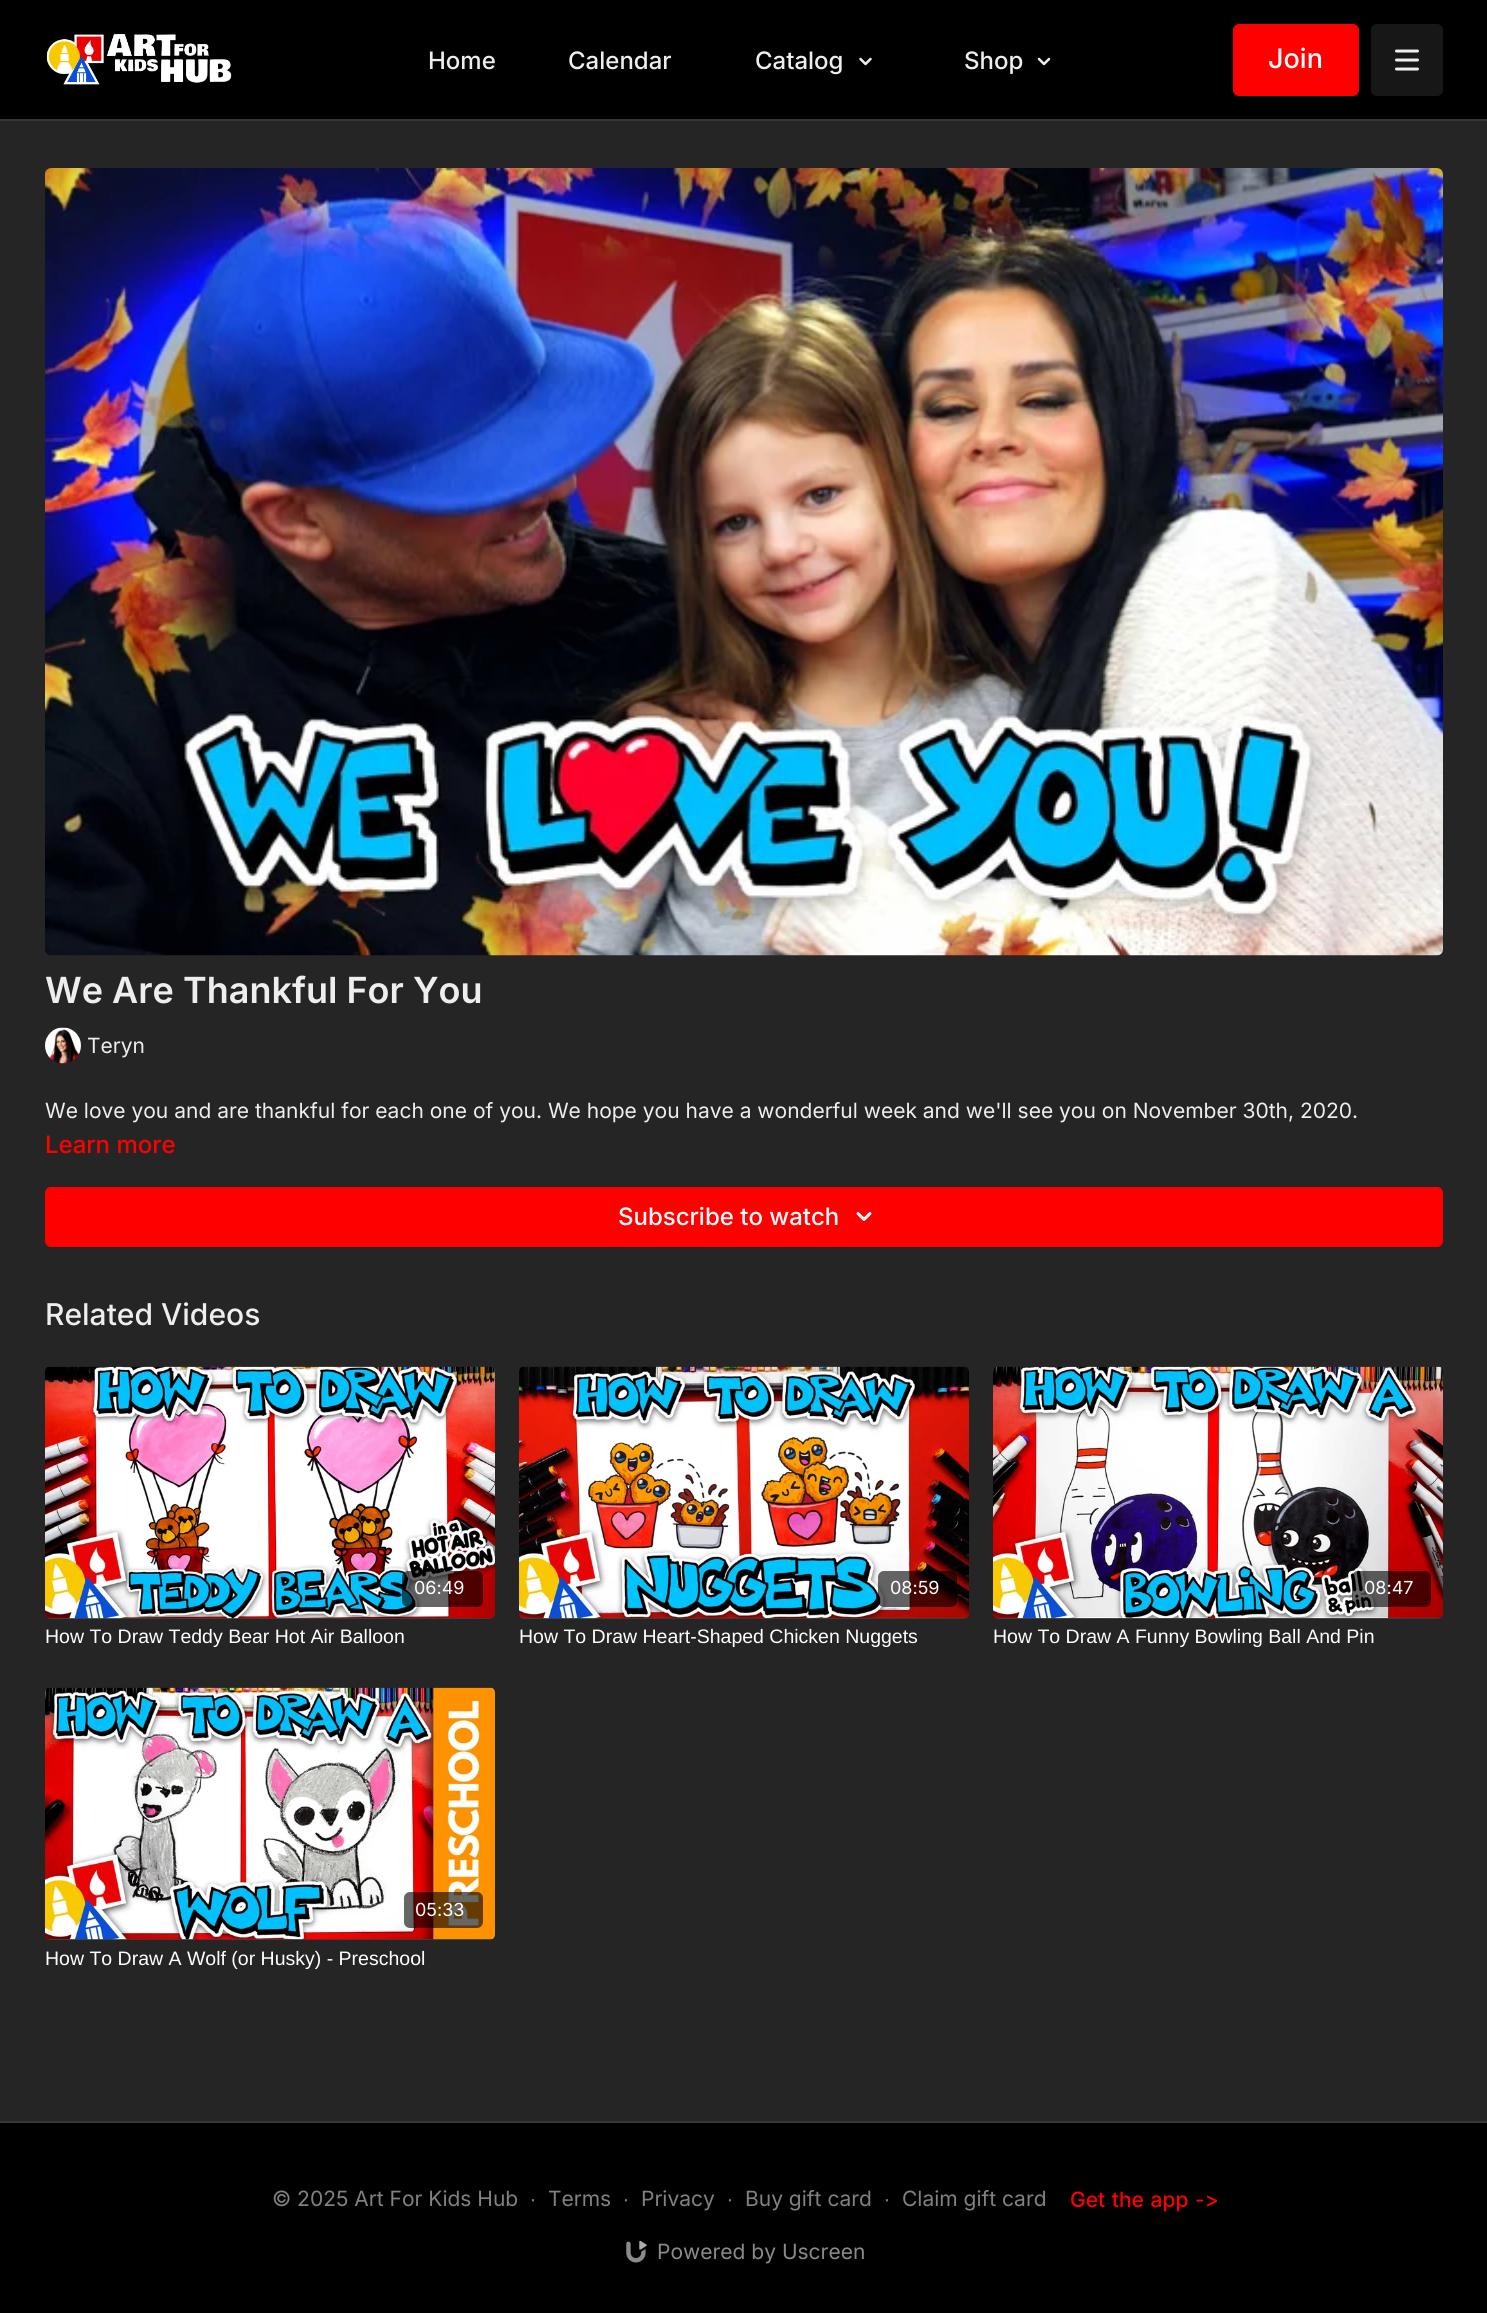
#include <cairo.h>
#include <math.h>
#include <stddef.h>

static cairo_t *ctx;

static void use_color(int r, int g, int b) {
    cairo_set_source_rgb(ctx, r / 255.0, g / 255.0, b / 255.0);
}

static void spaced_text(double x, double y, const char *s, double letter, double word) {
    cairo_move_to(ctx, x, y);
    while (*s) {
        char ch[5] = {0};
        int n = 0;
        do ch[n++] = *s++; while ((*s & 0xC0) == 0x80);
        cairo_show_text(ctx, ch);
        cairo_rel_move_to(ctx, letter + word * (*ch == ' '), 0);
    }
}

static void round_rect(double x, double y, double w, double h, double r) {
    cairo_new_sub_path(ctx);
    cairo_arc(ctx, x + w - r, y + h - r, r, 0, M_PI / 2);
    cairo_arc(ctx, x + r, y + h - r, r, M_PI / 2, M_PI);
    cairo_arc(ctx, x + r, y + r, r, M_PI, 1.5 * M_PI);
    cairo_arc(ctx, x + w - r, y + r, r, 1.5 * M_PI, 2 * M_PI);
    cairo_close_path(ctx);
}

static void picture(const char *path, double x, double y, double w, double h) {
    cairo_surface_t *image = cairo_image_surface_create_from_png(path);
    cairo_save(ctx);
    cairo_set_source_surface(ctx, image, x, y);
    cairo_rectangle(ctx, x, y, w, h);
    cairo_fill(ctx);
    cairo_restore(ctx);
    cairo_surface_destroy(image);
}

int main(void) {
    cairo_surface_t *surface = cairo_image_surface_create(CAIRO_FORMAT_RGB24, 1487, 2313);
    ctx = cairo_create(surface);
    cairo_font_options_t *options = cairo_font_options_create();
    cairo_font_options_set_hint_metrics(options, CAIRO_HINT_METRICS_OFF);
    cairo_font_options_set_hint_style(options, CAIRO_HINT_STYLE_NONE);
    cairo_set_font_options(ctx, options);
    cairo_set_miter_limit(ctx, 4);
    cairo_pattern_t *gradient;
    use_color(37, 37, 37);
    cairo_paint(ctx);
    use_color(0, 0, 0);
    cairo_rectangle(ctx, 0, 0, 1487, 119);
    cairo_fill(ctx);
    use_color(55, 55, 55);
    cairo_rectangle(ctx, 0, 119, 1487, 2);
    cairo_fill(ctx);
    picture("img1.png", 46, 34, 186, 51);
    cairo_select_font_face(ctx, "Inter Medium", CAIRO_FONT_SLANT_NORMAL, CAIRO_FONT_WEIGHT_NORMAL);
    cairo_set_font_size(ctx, 24);
    use_color(238, 238, 238);
    cairo_move_to(ctx, 428, 69);
    cairo_show_text(ctx, "Home");
    cairo_move_to(ctx, 568, 69);
    cairo_show_text(ctx, "Calendar");
    cairo_move_to(ctx, 755, 69);
    cairo_show_text(ctx, "Catalog");
    picture("img2.png", 859, 57, 13, 9);
    cairo_move_to(ctx, 964, 69);
    cairo_show_text(ctx, "Shop");
    picture("img3.png", 1037, 57, 14, 9);
    use_color(255, 0, 0);
    round_rect(1233, 24, 126, 72, 6);
    cairo_fill(ctx);
    cairo_set_font_size(ctx, 27);
    use_color(255, 255, 255);
    cairo_move_to(ctx, 1268, 68);
    cairo_show_text(ctx, "Join");
    use_color(23, 23, 23);
    round_rect(1371, 24, 72, 72, 6);
    cairo_fill(ctx);
    picture("img4.png", 1395, 49, 24, 22);
    picture("img5.png", 45, 168, 1398, 788);
    cairo_select_font_face(ctx, "Inter SemiBold", CAIRO_FONT_SLANT_NORMAL, CAIRO_FONT_WEIGHT_NORMAL);
    cairo_set_font_size(ctx, 36);
    use_color(238, 238, 238);
    cairo_move_to(ctx, 45, 1003);
    cairo_show_text(ctx, "We Are Thankful For You");
    picture("img6.png", 45, 1027, 36, 37);
    cairo_select_font_face(ctx, "Inter", CAIRO_FONT_SLANT_NORMAL, CAIRO_FONT_WEIGHT_NORMAL);
    cairo_set_font_size(ctx, 21);
    cairo_move_to(ctx, 87, 1053);
    cairo_show_text(ctx, "Teryn");
    cairo_move_to(ctx, 45, 1118);
    cairo_show_text(ctx, "We love you and are thankful for each one of you. We hope you have a wonderful week and we'll see you on November 30th, 2020.");
    cairo_select_font_face(ctx, "Inter Medium", CAIRO_FONT_SLANT_NORMAL, CAIRO_FONT_WEIGHT_NORMAL);
    cairo_set_font_size(ctx, 24);
    use_color(255, 0, 0);
    cairo_move_to(ctx, 45, 1153);
    cairo_show_text(ctx, "Learn more");
    round_rect(45, 1187, 1398, 60, 6);
    cairo_fill(ctx);
    use_color(255, 255, 255);
    cairo_move_to(ctx, 618, 1225);
    cairo_show_text(ctx, "Subscribe to watch");
    picture("img7.png", 856, 1212, 16, 9);
    cairo_set_font_size(ctx, 30);
    use_color(238, 238, 238);
    cairo_move_to(ctx, 45, 1325);
    cairo_show_text(ctx, "Related Videos");
    gradient = cairo_pattern_create_linear(45, 1493, 495, 1493);
    cairo_pattern_add_color_stop_rgba(gradient, 0.08, 0.255, 0.255, 0.255, 1);
    cairo_pattern_add_color_stop_rgba(gradient, 0.18, 0.247, 0.247, 0.247, 1);
    cairo_pattern_add_color_stop_rgba(gradient, 0.33, 0.239, 0.239, 0.239, 1);
    cairo_set_source(ctx, gradient);
    cairo_pattern_destroy(gradient);
    round_rect(45, 1367, 450, 252, 6);
    cairo_fill(ctx);
    picture("img8.png", 45, 1366, 450, 253);
    cairo_set_source_rgba(ctx, 0, 0, 0, 0.6);
    round_rect(402, 1571, 81, 36, 6);
    cairo_fill(ctx);
    cairo_select_font_face(ctx, "Inter", CAIRO_FONT_SLANT_NORMAL, CAIRO_FONT_WEIGHT_NORMAL);
    cairo_set_font_size(ctx, 18);
    use_color(255, 255, 255);
    cairo_move_to(ctx, 414, 1594);
    cairo_show_text(ctx, "06:49");
    cairo_select_font_face(ctx, "Liberation Sans", CAIRO_FONT_SLANT_NORMAL, CAIRO_FONT_WEIGHT_NORMAL);
    cairo_set_font_size(ctx, 19.5);
    cairo_move_to(ctx, 45, 1643);
    cairo_show_text(ctx, "How To Draw Teddy Bear Hot Air Balloon");
    gradient = cairo_pattern_create_linear(519, 1493, 969, 1493);
    cairo_pattern_add_color_stop_rgba(gradient, 0.08, 0.255, 0.255, 0.255, 1);
    cairo_pattern_add_color_stop_rgba(gradient, 0.18, 0.247, 0.247, 0.247, 1);
    cairo_pattern_add_color_stop_rgba(gradient, 0.33, 0.239, 0.239, 0.239, 1);
    cairo_set_source(ctx, gradient);
    cairo_pattern_destroy(gradient);
    round_rect(519, 1367, 450, 252, 6);
    cairo_fill(ctx);
    picture("img9.png", 519, 1366, 450, 253);
    cairo_set_source_rgba(ctx, 0, 0, 0, 0.6);
    round_rect(878, 1571, 79, 36, 6);
    cairo_fill(ctx);
    cairo_select_font_face(ctx, "Inter", CAIRO_FONT_SLANT_NORMAL, CAIRO_FONT_WEIGHT_NORMAL);
    cairo_set_font_size(ctx, 18);
    use_color(255, 255, 255);
    cairo_move_to(ctx, 890, 1594);
    cairo_show_text(ctx, "08:59");
    cairo_select_font_face(ctx, "Liberation Sans", CAIRO_FONT_SLANT_NORMAL, CAIRO_FONT_WEIGHT_NORMAL);
    cairo_set_font_size(ctx, 19.5);
    cairo_move_to(ctx, 519, 1643);
    cairo_show_text(ctx, "How To Draw Heart-Shaped Chicken Nuggets");
    gradient = cairo_pattern_create_linear(993, 1493, 1443, 1493);
    cairo_pattern_add_color_stop_rgba(gradient, 0.08, 0.255, 0.255, 0.255, 1);
    cairo_pattern_add_color_stop_rgba(gradient, 0.18, 0.247, 0.247, 0.247, 1);
    cairo_pattern_add_color_stop_rgba(gradient, 0.33, 0.239, 0.239, 0.239, 1);
    cairo_set_source(ctx, gradient);
    cairo_pattern_destroy(gradient);
    round_rect(993, 1367, 450, 252, 6);
    cairo_fill(ctx);
    picture("img10.png", 993, 1366, 450, 253);
    cairo_set_source_rgba(ctx, 0, 0, 0, 0.6);
    round_rect(1352, 1571, 79, 36, 6);
    cairo_fill(ctx);
    cairo_select_font_face(ctx, "Inter", CAIRO_FONT_SLANT_NORMAL, CAIRO_FONT_WEIGHT_NORMAL);
    cairo_set_font_size(ctx, 18);
    use_color(255, 255, 255);
    cairo_move_to(ctx, 1364, 1594);
    cairo_show_text(ctx, "08:47");
    cairo_select_font_face(ctx, "Liberation Sans", CAIRO_FONT_SLANT_NORMAL, CAIRO_FONT_WEIGHT_NORMAL);
    cairo_set_font_size(ctx, 19.5);
    cairo_move_to(ctx, 993, 1643);
    cairo_show_text(ctx, "How To Draw A Funny Bowling Ball And Pin");
    gradient = cairo_pattern_create_linear(45, 1814, 495, 1814);
    cairo_pattern_add_color_stop_rgba(gradient, 0.08, 0.255, 0.255, 0.255, 1);
    cairo_pattern_add_color_stop_rgba(gradient, 0.18, 0.247, 0.247, 0.247, 1);
    cairo_pattern_add_color_stop_rgba(gradient, 0.33, 0.239, 0.239, 0.239, 1);
    cairo_set_source(ctx, gradient);
    cairo_pattern_destroy(gradient);
    round_rect(45, 1688, 450, 252, 6);
    cairo_fill(ctx);
    picture("img11.png", 45, 1687, 450, 253);
    cairo_set_source_rgba(ctx, 0, 0, 0, 0.6);
    round_rect(404, 1892, 79, 36, 6);
    cairo_fill(ctx);
    cairo_select_font_face(ctx, "Inter", CAIRO_FONT_SLANT_NORMAL, CAIRO_FONT_WEIGHT_NORMAL);
    cairo_set_font_size(ctx, 18);
    use_color(255, 255, 255);
    cairo_move_to(ctx, 415, 1916);
    cairo_show_text(ctx, "05:33");
    cairo_select_font_face(ctx, "Liberation Sans", CAIRO_FONT_SLANT_NORMAL, CAIRO_FONT_WEIGHT_NORMAL);
    cairo_set_font_size(ctx, 19.5);
    cairo_move_to(ctx, 45, 1965);
    cairo_show_text(ctx, "How To Draw A Wolf (or Husky) - Preschool");
    use_color(0, 0, 0);
    cairo_rectangle(ctx, 0, 2123, 1487, 190);
    cairo_fill(ctx);
    use_color(55, 55, 55);
    cairo_rectangle(ctx, 0, 2121, 1487, 2);
    cairo_fill(ctx);
    cairo_select_font_face(ctx, "Inter", CAIRO_FONT_SLANT_NORMAL, CAIRO_FONT_WEIGHT_NORMAL);
    cairo_set_font_size(ctx, 21);
    use_color(129, 129, 129);
    cairo_move_to(ctx, 272, 2206);
    cairo_show_text(ctx, "© 2025 Art For Kids Hub");
    cairo_select_font_face(ctx, "Liberation Sans", CAIRO_FONT_SLANT_NORMAL, CAIRO_FONT_WEIGHT_NORMAL);
    cairo_move_to(ctx, 530, 2206);
    cairo_show_text(ctx, "∙");
    cairo_select_font_face(ctx, "Inter", CAIRO_FONT_SLANT_NORMAL, CAIRO_FONT_WEIGHT_NORMAL);
    cairo_move_to(ctx, 548, 2206);
    cairo_show_text(ctx, "Terms");
    cairo_select_font_face(ctx, "Liberation Sans", CAIRO_FONT_SLANT_NORMAL, CAIRO_FONT_WEIGHT_NORMAL);
    cairo_move_to(ctx, 623, 2206);
    cairo_show_text(ctx, "∙");
    cairo_select_font_face(ctx, "Inter", CAIRO_FONT_SLANT_NORMAL, CAIRO_FONT_WEIGHT_NORMAL);
    cairo_move_to(ctx, 641, 2206);
    cairo_show_text(ctx, "Privacy");
    cairo_select_font_face(ctx, "Liberation Sans", CAIRO_FONT_SLANT_NORMAL, CAIRO_FONT_WEIGHT_NORMAL);
    cairo_move_to(ctx, 727, 2206);
    cairo_show_text(ctx, "∙");
    cairo_select_font_face(ctx, "Inter", CAIRO_FONT_SLANT_NORMAL, CAIRO_FONT_WEIGHT_NORMAL);
    cairo_move_to(ctx, 745, 2206);
    cairo_show_text(ctx, "Buy gift card");
    cairo_select_font_face(ctx, "Liberation Sans", CAIRO_FONT_SLANT_NORMAL, CAIRO_FONT_WEIGHT_NORMAL);
    cairo_move_to(ctx, 884, 2206);
    cairo_show_text(ctx, "∙");
    cairo_select_font_face(ctx, "Inter", CAIRO_FONT_SLANT_NORMAL, CAIRO_FONT_WEIGHT_NORMAL);
    cairo_move_to(ctx, 902, 2206);
    cairo_show_text(ctx, "Claim gift card");
    cairo_select_font_face(ctx, "Inter Medium", CAIRO_FONT_SLANT_NORMAL, CAIRO_FONT_WEIGHT_NORMAL);
    use_color(255, 0, 0);
    spaced_text(1070, 2207, "Get the app ->", 0, 1);
    picture("img12.png", 626, 2240, 21, 23);
    cairo_select_font_face(ctx, "Inter", CAIRO_FONT_SLANT_NORMAL, CAIRO_FONT_WEIGHT_NORMAL);
    use_color(138, 138, 138);
    cairo_move_to(ctx, 657, 2259);
    cairo_show_text(ctx, "Powered by Uscreen");
    cairo_surface_write_to_png(surface, "result.png");
    cairo_font_options_destroy(options);
    cairo_destroy(ctx);
    cairo_surface_destroy(surface);
    return 0;
}
